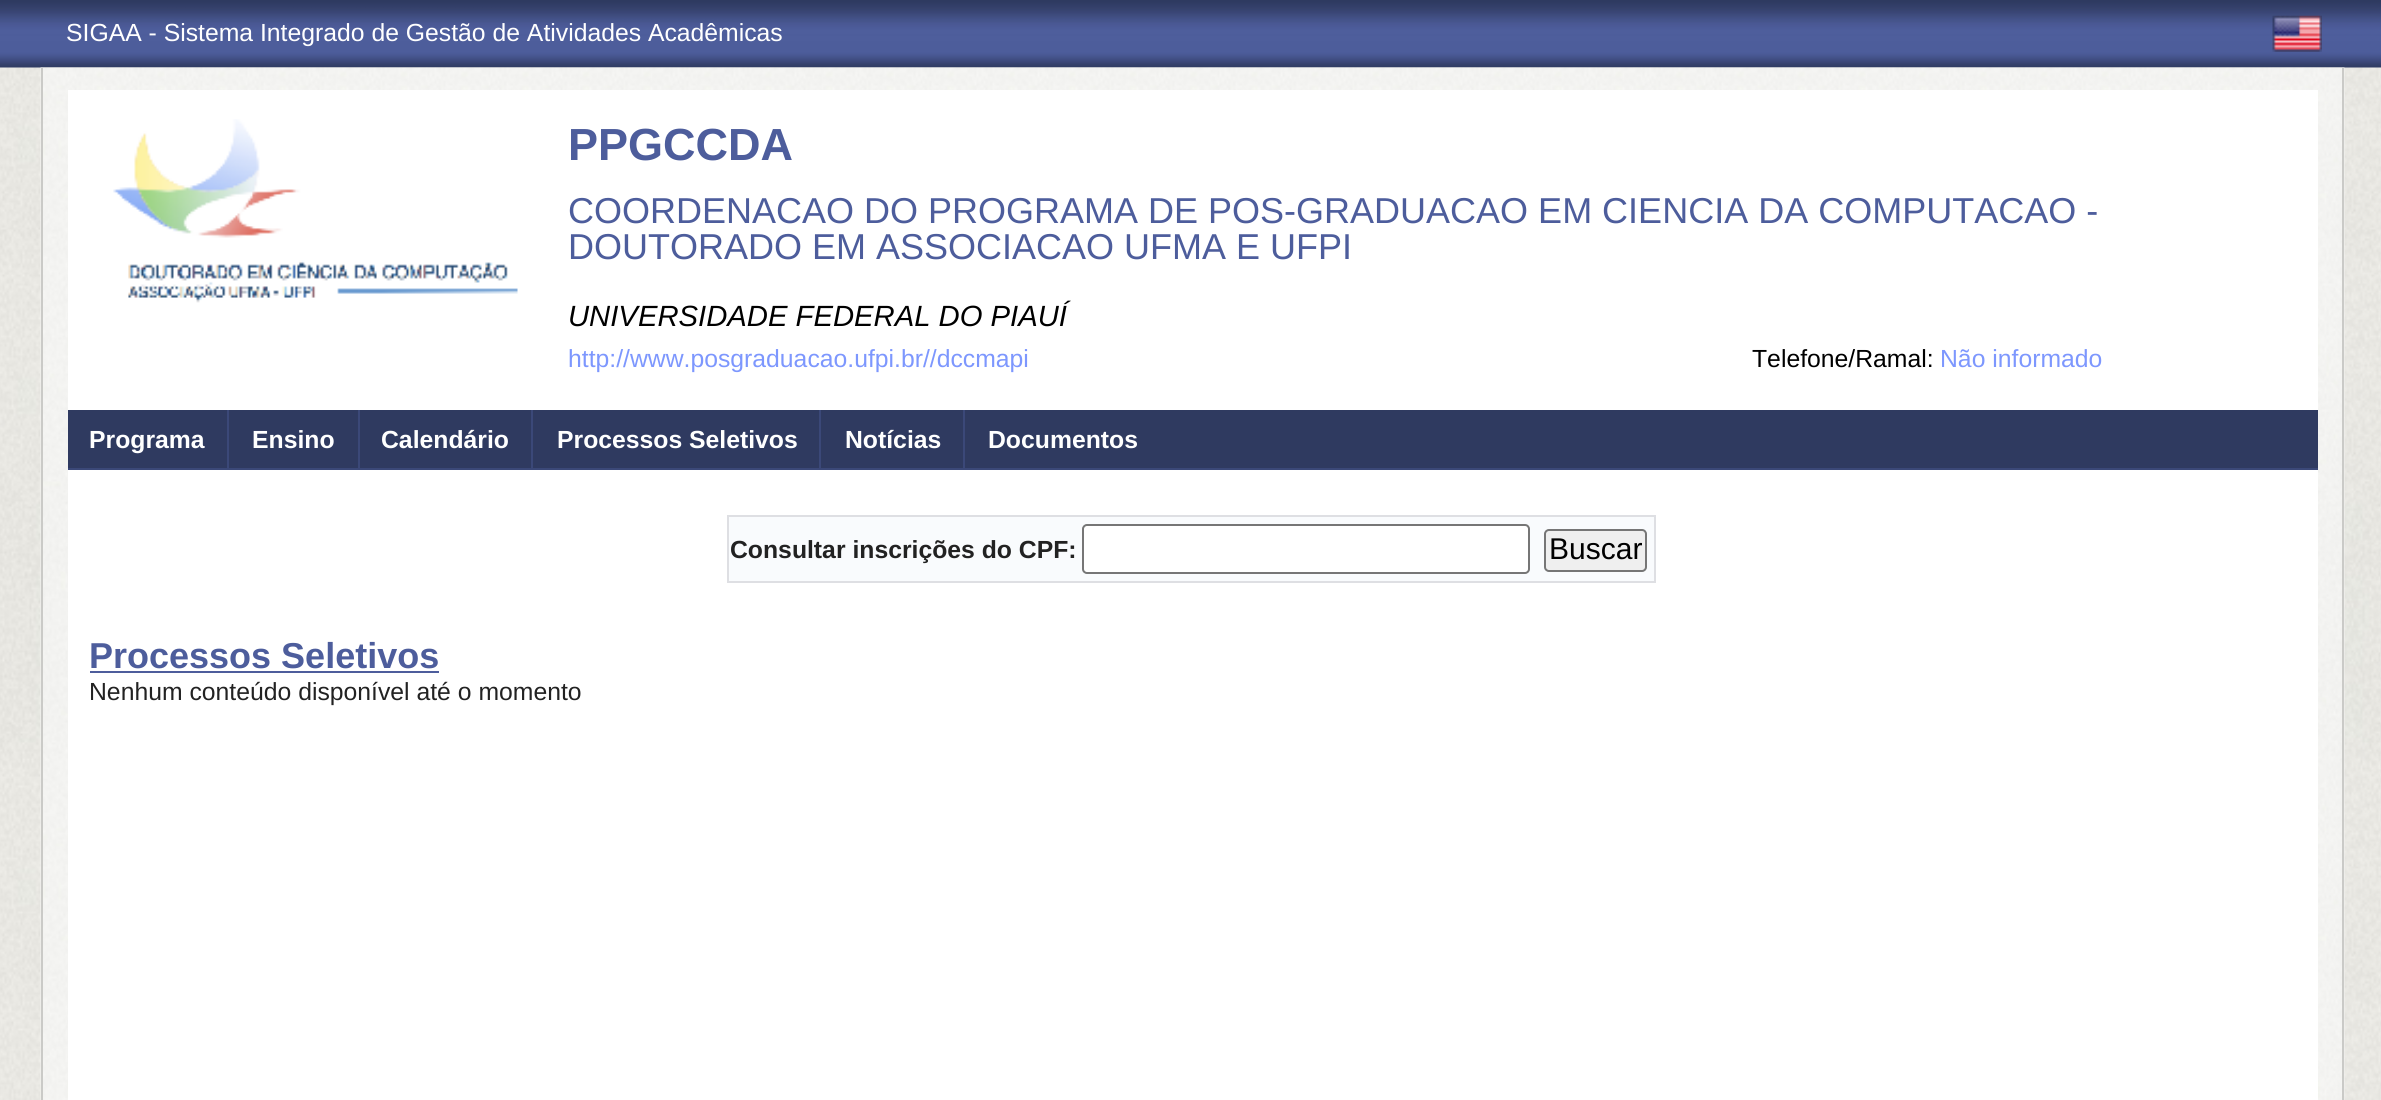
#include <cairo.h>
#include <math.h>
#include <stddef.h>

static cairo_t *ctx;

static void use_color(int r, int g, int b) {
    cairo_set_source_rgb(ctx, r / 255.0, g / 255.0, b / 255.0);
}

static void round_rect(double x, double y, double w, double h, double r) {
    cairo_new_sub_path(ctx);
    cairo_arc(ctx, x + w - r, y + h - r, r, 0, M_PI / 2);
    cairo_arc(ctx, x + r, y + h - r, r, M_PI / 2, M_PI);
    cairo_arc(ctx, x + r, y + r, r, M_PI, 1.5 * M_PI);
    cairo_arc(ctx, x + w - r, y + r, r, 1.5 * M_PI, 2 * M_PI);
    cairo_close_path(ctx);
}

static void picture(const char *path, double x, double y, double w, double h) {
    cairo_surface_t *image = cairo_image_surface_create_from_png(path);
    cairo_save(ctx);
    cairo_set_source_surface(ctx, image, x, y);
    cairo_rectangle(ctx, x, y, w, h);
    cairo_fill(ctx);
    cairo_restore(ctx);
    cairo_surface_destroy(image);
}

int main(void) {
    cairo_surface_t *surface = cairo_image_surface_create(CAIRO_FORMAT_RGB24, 2381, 1100);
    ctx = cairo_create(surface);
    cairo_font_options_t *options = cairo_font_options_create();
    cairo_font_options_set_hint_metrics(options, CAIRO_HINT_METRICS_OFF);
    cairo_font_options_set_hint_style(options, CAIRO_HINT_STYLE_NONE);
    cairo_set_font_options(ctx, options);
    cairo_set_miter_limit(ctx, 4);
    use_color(255, 255, 255);
    cairo_paint(ctx);
    picture("img1.png", 0, 67, 2381, 1033);
    picture("img2.png", 0, 0, 2381, 68);
    cairo_select_font_face(ctx, "Liberation Sans", CAIRO_FONT_SLANT_NORMAL, CAIRO_FONT_WEIGHT_NORMAL);
    cairo_set_font_size(ctx, 24.75);
    use_color(255, 255, 255);
    cairo_move_to(ctx, 66, 41);
    cairo_show_text(ctx, "SIGAA - Sistema Integrado de Gestão de Atividades Acadêmicas");
    picture("img3.png", 2272, 15, 50, 37);
    picture("img4.png", 40, 67, 2305, 1033);
    use_color(202, 202, 199);
    cairo_rectangle(ctx, 2342, 68, 2, 1032);
    cairo_fill(ctx);
    cairo_rectangle(ctx, 41, 68, 2, 1032);
    cairo_fill(ctx);
    use_color(255, 255, 255);
    cairo_rectangle(ctx, 68, 90, 2250, 1010);
    cairo_fill(ctx);
    picture("img5.png", 113, 119, 405, 184);
    cairo_select_font_face(ctx, "Liberation Sans", CAIRO_FONT_SLANT_NORMAL, CAIRO_FONT_WEIGHT_BOLD);
    cairo_set_font_size(ctx, 45);
    use_color(77, 93, 156);
    cairo_move_to(ctx, 568, 160);
    cairo_show_text(ctx, "PPGCCDA");
    cairo_select_font_face(ctx, "Liberation Sans", CAIRO_FONT_SLANT_NORMAL, CAIRO_FONT_WEIGHT_NORMAL);
    cairo_set_font_size(ctx, 36);
    cairo_move_to(ctx, 568, 223);
    cairo_show_text(ctx, "COORDENACAO DO PROGRAMA DE POS-GRADUACAO EM CIENCIA DA COMPUTACAO -");
    cairo_move_to(ctx, 568, 259);
    cairo_show_text(ctx, "DOUTORADO EM ASSOCIACAO UFMA E UFPI");
    cairo_select_font_face(ctx, "Liberation Sans", CAIRO_FONT_SLANT_ITALIC, CAIRO_FONT_WEIGHT_NORMAL);
    cairo_set_font_size(ctx, 29.25);
    use_color(0, 0, 0);
    cairo_move_to(ctx, 568, 326);
    cairo_show_text(ctx, "UNIVERSIDADE FEDERAL DO PIAUÍ");
    cairo_select_font_face(ctx, "Liberation Sans", CAIRO_FONT_SLANT_NORMAL, CAIRO_FONT_WEIGHT_NORMAL);
    cairo_set_font_size(ctx, 24.75);
    use_color(125, 151, 254);
    cairo_move_to(ctx, 568, 367);
    cairo_show_text(ctx, "http://www.posgraduacao.ufpi.br//dccmapi");
    use_color(0, 0, 0);
    cairo_move_to(ctx, 1752, 367);
    cairo_show_text(ctx, "Telefone/Ramal:");
    use_color(125, 151, 254);
    cairo_move_to(ctx, 1940, 367);
    cairo_show_text(ctx, "Não informado");
    use_color(47, 58, 96);
    cairo_rectangle(ctx, 68, 410, 2250, 58);
    cairo_fill(ctx);
    use_color(59, 72, 120);
    cairo_rectangle(ctx, 68, 468, 2250, 2);
    cairo_fill(ctx);
    cairo_select_font_face(ctx, "Liberation Sans", CAIRO_FONT_SLANT_NORMAL, CAIRO_FONT_WEIGHT_BOLD);
    use_color(255, 255, 255);
    cairo_move_to(ctx, 89, 448);
    cairo_show_text(ctx, "Programa");
    use_color(59, 72, 120);
    cairo_rectangle(ctx, 227, 410, 2, 60);
    cairo_fill(ctx);
    use_color(255, 255, 255);
    cairo_move_to(ctx, 252, 448);
    cairo_show_text(ctx, "Ensino");
    use_color(59, 72, 120);
    cairo_rectangle(ctx, 358, 410, 2, 60);
    cairo_fill(ctx);
    use_color(255, 255, 255);
    cairo_move_to(ctx, 381, 448);
    cairo_show_text(ctx, "Calendário");
    use_color(59, 72, 120);
    cairo_rectangle(ctx, 531, 410, 2, 60);
    cairo_fill(ctx);
    use_color(255, 255, 255);
    cairo_move_to(ctx, 557, 448);
    cairo_show_text(ctx, "Processos Seletivos");
    use_color(59, 72, 120);
    cairo_rectangle(ctx, 819, 410, 2, 60);
    cairo_fill(ctx);
    use_color(255, 255, 255);
    cairo_move_to(ctx, 845, 448);
    cairo_show_text(ctx, "Notícias");
    use_color(59, 72, 120);
    cairo_rectangle(ctx, 963, 410, 2, 60);
    cairo_fill(ctx);
    use_color(255, 255, 255);
    cairo_move_to(ctx, 988, 448);
    cairo_show_text(ctx, "Documentos");
    use_color(249, 251, 253);
    cairo_rectangle(ctx, 729, 517, 925, 64);
    cairo_fill(ctx);
    use_color(222, 223, 227);
    cairo_rectangle(ctx, 727, 515, 929, 2);
    cairo_fill(ctx);
    cairo_rectangle(ctx, 1654, 515, 2, 68);
    cairo_fill(ctx);
    cairo_rectangle(ctx, 727, 581, 929, 2);
    cairo_fill(ctx);
    cairo_rectangle(ctx, 727, 515, 2, 68);
    cairo_fill(ctx);
    use_color(34, 34, 34);
    cairo_move_to(ctx, 730, 558);
    cairo_show_text(ctx, "Consultar inscrições do CPF:");
    use_color(255, 255, 255);
    round_rect(1083, 525, 446, 48, 4);
    cairo_fill_preserve(ctx);
    use_color(118, 118, 118);
    cairo_stroke(ctx);
    use_color(239, 239, 239);
    round_rect(1545, 530, 101, 41, 4);
    cairo_fill_preserve(ctx);
    use_color(118, 118, 118);
    cairo_stroke(ctx);
    cairo_select_font_face(ctx, "Liberation Sans", CAIRO_FONT_SLANT_NORMAL, CAIRO_FONT_WEIGHT_NORMAL);
    cairo_set_font_size(ctx, 30);
    use_color(0, 0, 0);
    cairo_move_to(ctx, 1549, 559);
    cairo_show_text(ctx, "Buscar");
    cairo_select_font_face(ctx, "Liberation Sans", CAIRO_FONT_SLANT_NORMAL, CAIRO_FONT_WEIGHT_BOLD);
    cairo_set_font_size(ctx, 36);
    use_color(77, 93, 156);
    cairo_move_to(ctx, 89, 668);
    cairo_show_text(ctx, "Processos Seletivos");
    cairo_rectangle(ctx, 90, 671, 349, 2);
    cairo_fill(ctx);
    cairo_select_font_face(ctx, "Liberation Sans", CAIRO_FONT_SLANT_NORMAL, CAIRO_FONT_WEIGHT_NORMAL);
    cairo_set_font_size(ctx, 24.75);
    use_color(34, 34, 34);
    cairo_move_to(ctx, 89, 700);
    cairo_show_text(ctx, "Nenhum conteúdo disponível até o momento");
    cairo_surface_write_to_png(surface, "result.png");
    cairo_font_options_destroy(options);
    cairo_destroy(ctx);
    cairo_surface_destroy(surface);
    return 0;
}
